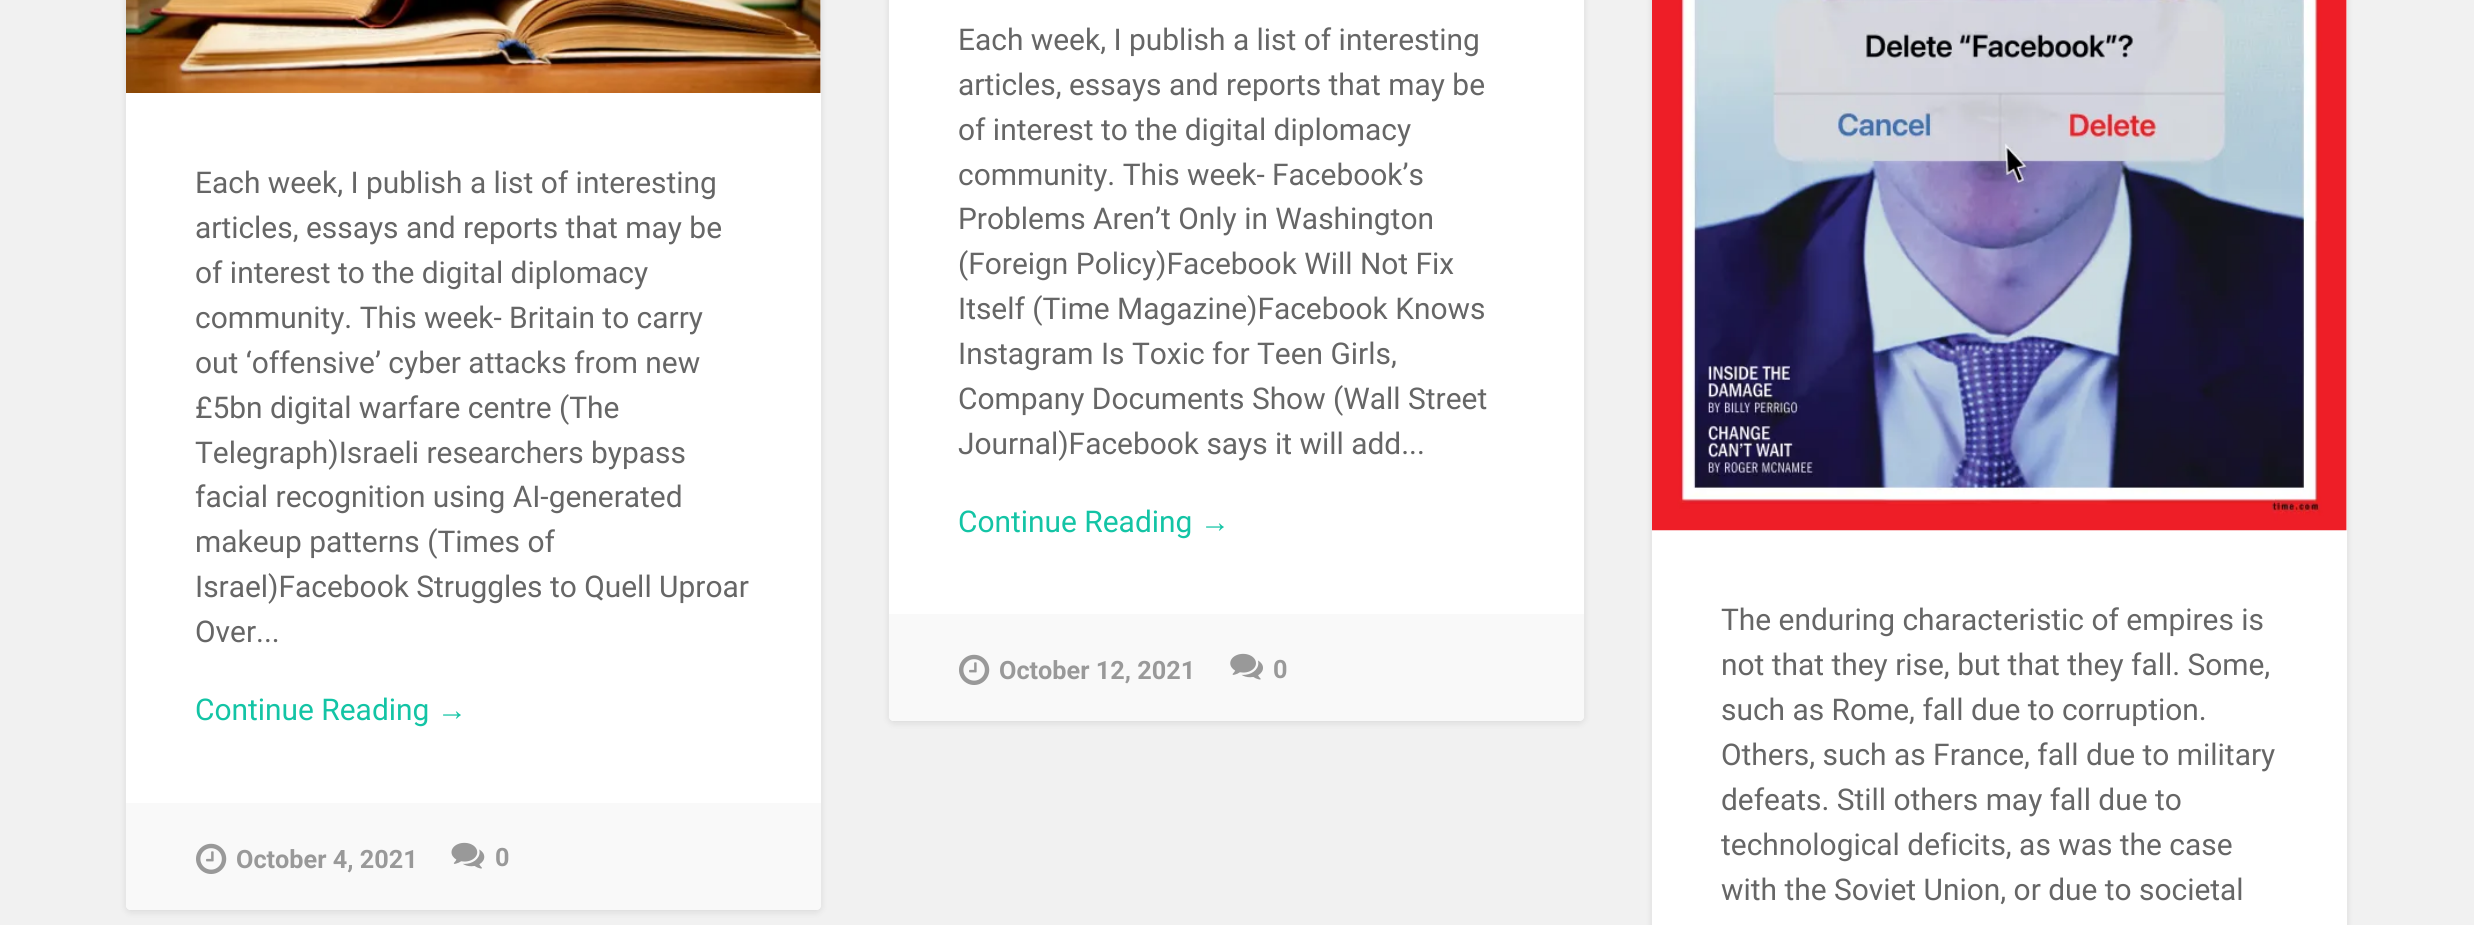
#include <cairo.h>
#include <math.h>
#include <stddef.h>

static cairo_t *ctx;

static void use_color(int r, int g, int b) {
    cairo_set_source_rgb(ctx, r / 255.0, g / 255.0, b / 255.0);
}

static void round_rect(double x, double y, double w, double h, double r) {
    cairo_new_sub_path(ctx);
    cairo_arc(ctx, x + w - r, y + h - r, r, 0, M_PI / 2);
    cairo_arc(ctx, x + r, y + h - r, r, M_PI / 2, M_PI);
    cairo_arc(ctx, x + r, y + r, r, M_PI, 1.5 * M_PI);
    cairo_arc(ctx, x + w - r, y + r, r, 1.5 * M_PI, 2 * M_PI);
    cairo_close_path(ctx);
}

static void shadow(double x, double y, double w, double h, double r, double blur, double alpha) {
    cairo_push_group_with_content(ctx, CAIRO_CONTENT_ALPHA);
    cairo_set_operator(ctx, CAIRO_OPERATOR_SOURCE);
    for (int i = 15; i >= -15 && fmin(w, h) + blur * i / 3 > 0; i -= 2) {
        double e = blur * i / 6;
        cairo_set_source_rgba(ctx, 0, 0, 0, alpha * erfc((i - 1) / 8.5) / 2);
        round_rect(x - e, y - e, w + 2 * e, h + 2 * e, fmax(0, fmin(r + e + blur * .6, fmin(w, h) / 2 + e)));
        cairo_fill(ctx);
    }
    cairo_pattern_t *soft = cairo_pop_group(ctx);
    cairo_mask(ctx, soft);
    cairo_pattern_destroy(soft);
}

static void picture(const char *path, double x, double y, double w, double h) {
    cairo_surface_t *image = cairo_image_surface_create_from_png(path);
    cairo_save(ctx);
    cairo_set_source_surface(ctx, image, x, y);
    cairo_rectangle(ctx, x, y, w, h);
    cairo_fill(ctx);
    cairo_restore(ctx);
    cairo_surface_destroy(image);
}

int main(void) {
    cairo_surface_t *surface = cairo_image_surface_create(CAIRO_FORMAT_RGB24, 2474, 925);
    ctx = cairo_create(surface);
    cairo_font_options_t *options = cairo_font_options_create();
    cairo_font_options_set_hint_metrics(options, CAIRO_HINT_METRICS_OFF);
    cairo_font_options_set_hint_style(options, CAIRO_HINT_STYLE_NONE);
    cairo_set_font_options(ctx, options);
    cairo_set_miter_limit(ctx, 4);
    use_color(241, 241, 241);
    cairo_paint(ctx);
    use_color(0, 0, 0);
    shadow(126, -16, 695, 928, 5, 3.5, 0.1);
    use_color(255, 255, 255);
    round_rect(126, -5, 695, 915, 5);
    cairo_fill(ctx);
    picture("img1.png", 126, 0, 695, 93);
    cairo_select_font_face(ctx, "Roboto", CAIRO_FONT_SLANT_NORMAL, CAIRO_FONT_WEIGHT_NORMAL);
    cairo_set_font_size(ctx, 29.9);
    use_color(102, 102, 102);
    cairo_move_to(ctx, 195, 193);
    cairo_show_text(ctx, "Each week, I publish a list of interesting");
    cairo_move_to(ctx, 195, 238);
    cairo_show_text(ctx, "articles, essays and reports that may be");
    cairo_move_to(ctx, 195, 283);
    cairo_show_text(ctx, "of interest to the digital diplomacy");
    cairo_move_to(ctx, 195, 328);
    cairo_show_text(ctx, "community. This week- Britain to carry");
    cairo_move_to(ctx, 195, 373);
    cairo_show_text(ctx, "out ‘offensive’ cyber attacks from new");
    cairo_move_to(ctx, 195, 418);
    cairo_show_text(ctx, "£5bn digital warfare centre (The");
    cairo_move_to(ctx, 195, 463);
    cairo_show_text(ctx, "Telegraph)Israeli researchers bypass");
    cairo_move_to(ctx, 195, 507);
    cairo_show_text(ctx, "facial recognition using AI-generated");
    cairo_move_to(ctx, 195, 552);
    cairo_show_text(ctx, "makeup patterns (Times of");
    cairo_move_to(ctx, 195, 597);
    cairo_show_text(ctx, "Israel)Facebook Struggles to Quell Uproar");
    cairo_move_to(ctx, 195, 642);
    cairo_show_text(ctx, "Over...");
    use_color(19, 196, 165);
    cairo_move_to(ctx, 195, 720);
    cairo_show_text(ctx, "Continue Reading");
    cairo_select_font_face(ctx, "Liberation Sans", CAIRO_FONT_SLANT_NORMAL, CAIRO_FONT_WEIGHT_NORMAL);
    cairo_move_to(ctx, 437, 720);
    cairo_show_text(ctx, "→");
    use_color(249, 249, 249);
    cairo_new_path(ctx);
    cairo_move_to(ctx, 126, 803);
    cairo_line_to(ctx, 821, 803);
    cairo_line_to(ctx, 821, 905);
    cairo_curve_to(ctx, 821, 908, 819, 910, 816, 910);
    cairo_line_to(ctx, 131, 910);
    cairo_curve_to(ctx, 128, 910, 126, 908, 126, 905);
    cairo_close_path(ctx);
    cairo_fill(ctx);
    picture("img2.png", 196, 843, 31, 31);
    cairo_select_font_face(ctx, "Roboto", CAIRO_FONT_SLANT_NORMAL, CAIRO_FONT_WEIGHT_BOLD);
    cairo_set_font_size(ctx, 25.25);
    use_color(153, 153, 153);
    cairo_move_to(ctx, 236, 868);
    cairo_show_text(ctx, "October 4, 2021");
    picture("img3.png", 451, 842, 34, 27);
    cairo_move_to(ctx, 495, 866);
    cairo_show_text(ctx, "0");
    use_color(0, 0, 0);
    shadow(889, -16, 695, 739, 5, 3.5, 0.1);
    use_color(255, 255, 255);
    round_rect(889, -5, 695, 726, 5);
    cairo_fill(ctx);
    cairo_select_font_face(ctx, "Roboto", CAIRO_FONT_SLANT_NORMAL, CAIRO_FONT_WEIGHT_NORMAL);
    cairo_set_font_size(ctx, 29.9);
    use_color(102, 102, 102);
    cairo_move_to(ctx, 958, 50);
    cairo_show_text(ctx, "Each week, I publish a list of interesting");
    cairo_move_to(ctx, 958, 95);
    cairo_show_text(ctx, "articles, essays and reports that may be");
    cairo_move_to(ctx, 958, 140);
    cairo_show_text(ctx, "of interest to the digital diplomacy");
    cairo_move_to(ctx, 958, 185);
    cairo_show_text(ctx, "community. This week- Facebook’s");
    cairo_move_to(ctx, 958, 229);
    cairo_show_text(ctx, "Problems Aren’t Only in Washington");
    cairo_move_to(ctx, 958, 274);
    cairo_show_text(ctx, "(Foreign Policy)Facebook Will Not Fix");
    cairo_move_to(ctx, 958, 319);
    cairo_show_text(ctx, "Itself (Time Magazine)Facebook Knows");
    cairo_move_to(ctx, 958, 364);
    cairo_show_text(ctx, "Instagram Is Toxic for Teen Girls,");
    cairo_move_to(ctx, 958, 409);
    cairo_show_text(ctx, "Company Documents Show (Wall Street");
    cairo_move_to(ctx, 958, 454);
    cairo_show_text(ctx, "Journal)Facebook says it will add...");
    use_color(19, 196, 165);
    cairo_move_to(ctx, 958, 532);
    cairo_show_text(ctx, "Continue Reading");
    cairo_select_font_face(ctx, "Liberation Sans", CAIRO_FONT_SLANT_NORMAL, CAIRO_FONT_WEIGHT_NORMAL);
    cairo_move_to(ctx, 1200, 532);
    cairo_show_text(ctx, "→");
    use_color(249, 249, 249);
    cairo_new_path(ctx);
    cairo_move_to(ctx, 889, 614);
    cairo_line_to(ctx, 1584, 614);
    cairo_line_to(ctx, 1584, 716);
    cairo_curve_to(ctx, 1584, 719, 1582, 721, 1579, 721);
    cairo_line_to(ctx, 894, 721);
    cairo_curve_to(ctx, 891, 721, 889, 719, 889, 716);
    cairo_close_path(ctx);
    cairo_fill(ctx);
    picture("img2.png", 959, 654, 31, 31);
    cairo_select_font_face(ctx, "Roboto", CAIRO_FONT_SLANT_NORMAL, CAIRO_FONT_WEIGHT_BOLD);
    cairo_set_font_size(ctx, 25.25);
    use_color(153, 153, 153);
    cairo_move_to(ctx, 999, 679);
    cairo_show_text(ctx, "October 12, 2021");
    picture("img4.png", 1230, 653, 33, 27);
    cairo_move_to(ctx, 1273, 678);
    cairo_show_text(ctx, "0");
    use_color(0, 0, 0);
    shadow(1652, -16, 695, 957, 5, 3.5, 0.1);
    use_color(255, 255, 255);
    cairo_rectangle(ctx, 1652, 0, 695, 925);
    cairo_fill(ctx);
    picture("img5.png", 1652, 0, 695, 531);
    cairo_select_font_face(ctx, "Roboto", CAIRO_FONT_SLANT_NORMAL, CAIRO_FONT_WEIGHT_NORMAL);
    cairo_set_font_size(ctx, 29.9);
    use_color(102, 102, 102);
    cairo_move_to(ctx, 1721, 630);
    cairo_show_text(ctx, "The enduring characteristic of empires is");
    cairo_move_to(ctx, 1721, 675);
    cairo_show_text(ctx, "not that they rise, but that they fall. Some,");
    cairo_move_to(ctx, 1721, 720);
    cairo_show_text(ctx, "such as Rome, fall due to corruption.");
    cairo_move_to(ctx, 1721, 765);
    cairo_show_text(ctx, "Others, such as France, fall due to military");
    cairo_move_to(ctx, 1721, 810);
    cairo_show_text(ctx, "defeats. Still others may fall due to");
    cairo_move_to(ctx, 1721, 855);
    cairo_show_text(ctx, "technological deficits, as was the case");
    cairo_move_to(ctx, 1721, 900);
    cairo_show_text(ctx, "with the Soviet Union, or due to societal");
    cairo_surface_write_to_png(surface, "result.png");
    cairo_font_options_destroy(options);
    cairo_destroy(ctx);
    cairo_surface_destroy(surface);
    return 0;
}
